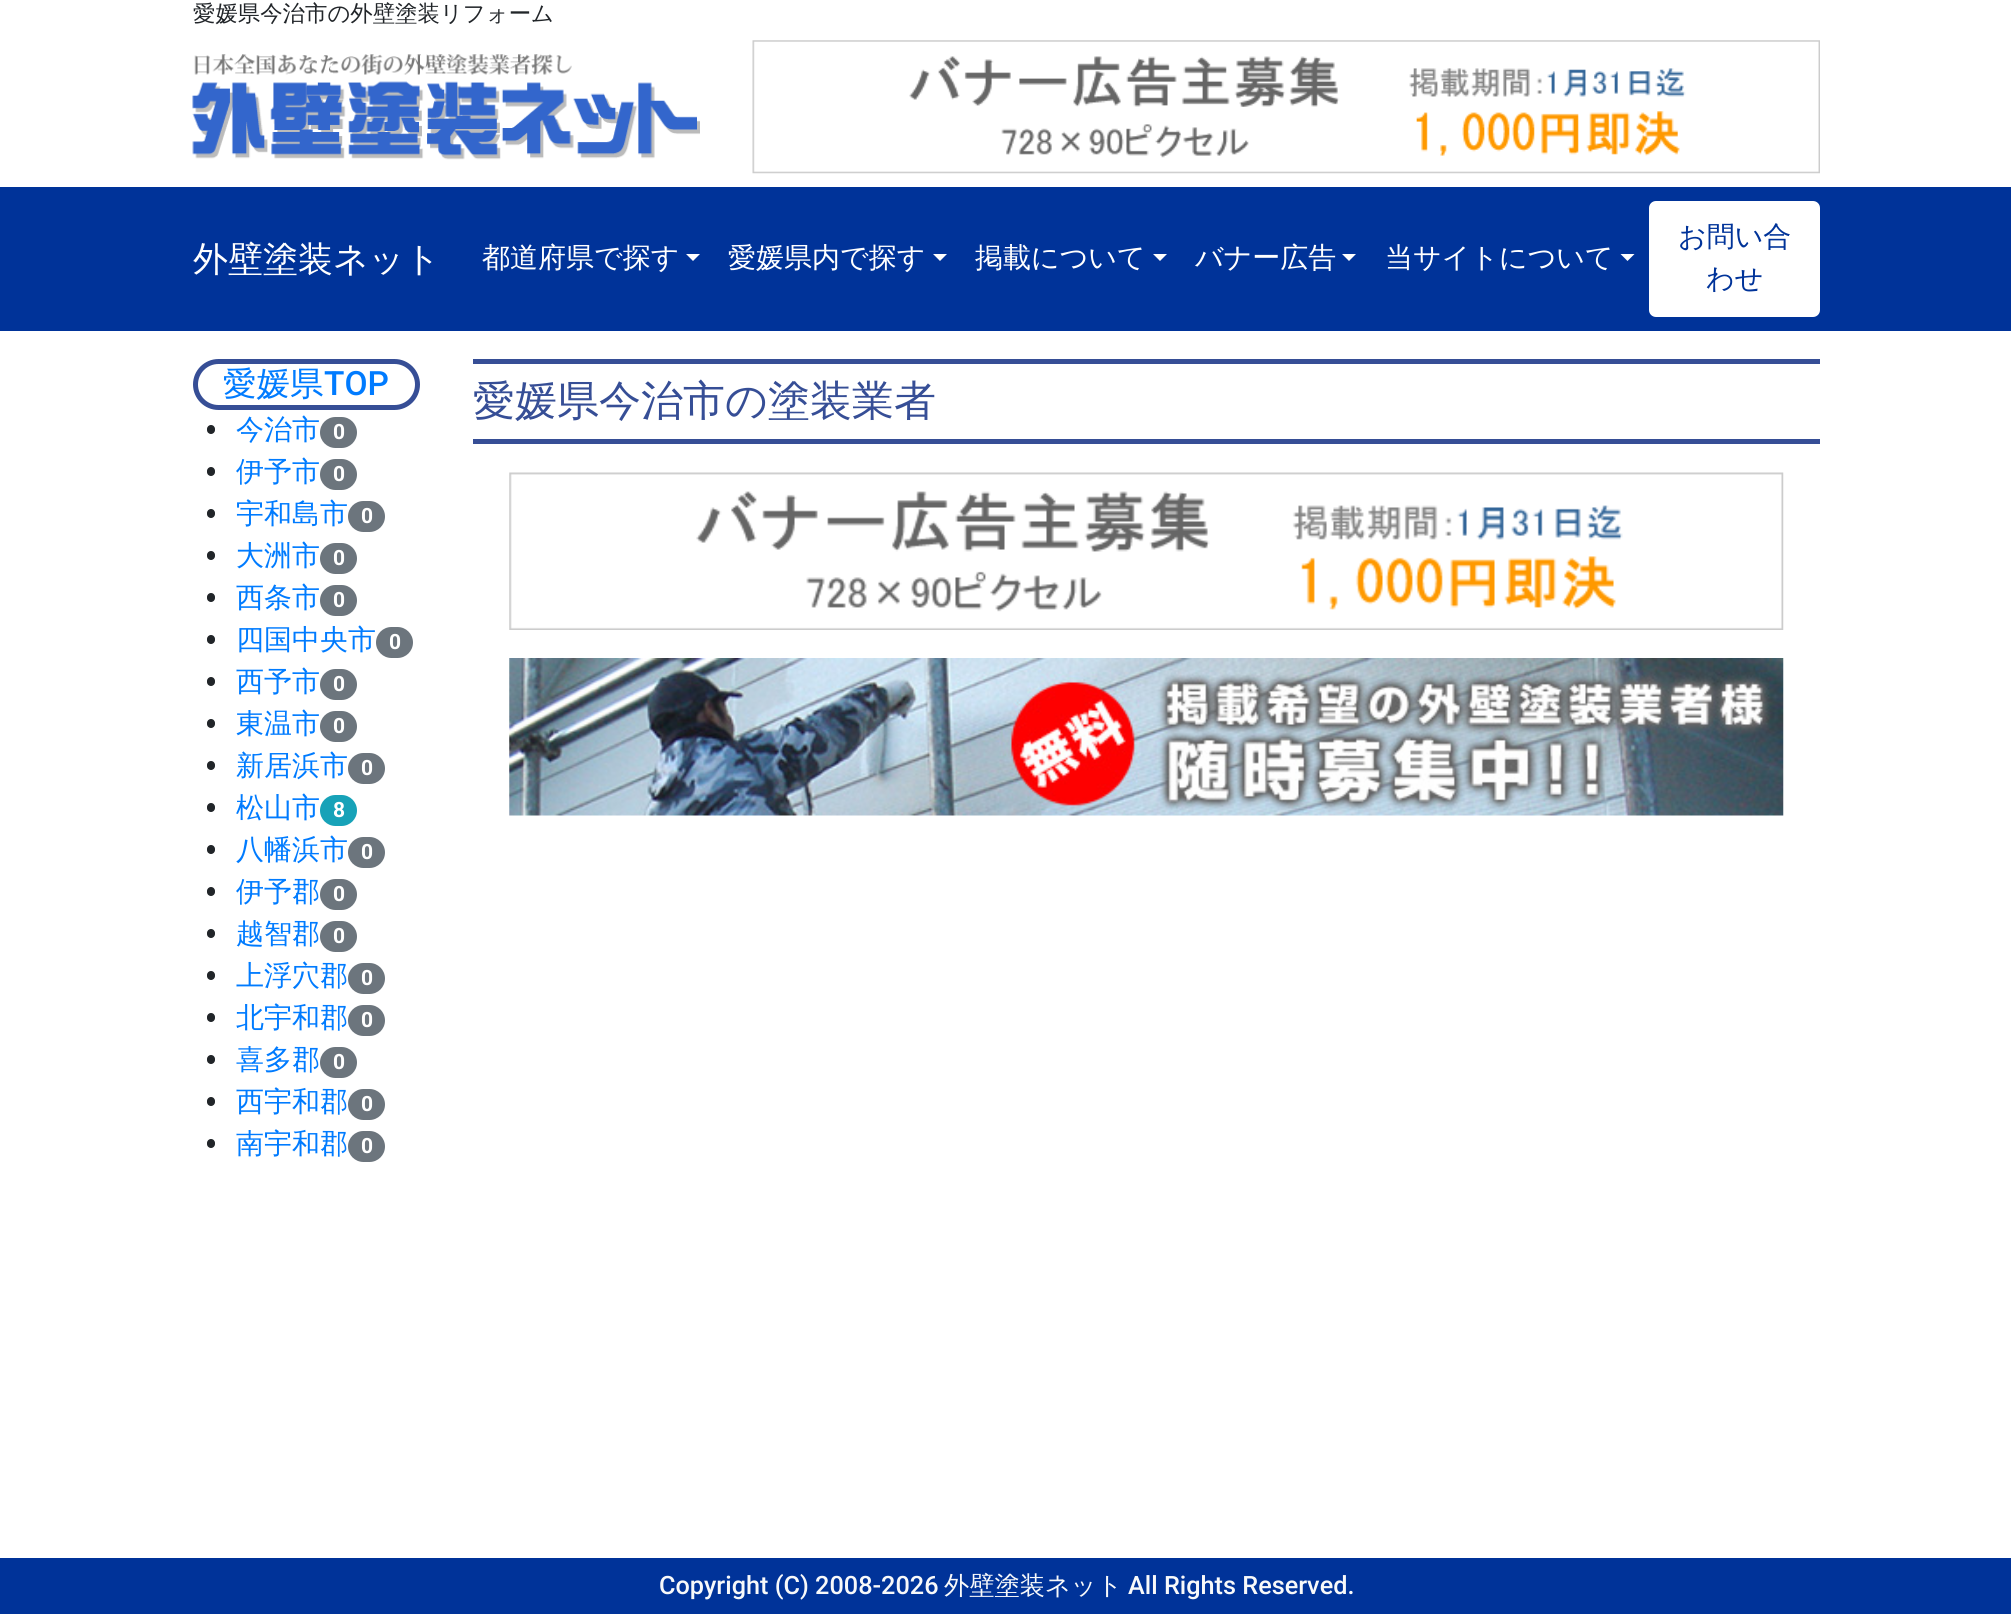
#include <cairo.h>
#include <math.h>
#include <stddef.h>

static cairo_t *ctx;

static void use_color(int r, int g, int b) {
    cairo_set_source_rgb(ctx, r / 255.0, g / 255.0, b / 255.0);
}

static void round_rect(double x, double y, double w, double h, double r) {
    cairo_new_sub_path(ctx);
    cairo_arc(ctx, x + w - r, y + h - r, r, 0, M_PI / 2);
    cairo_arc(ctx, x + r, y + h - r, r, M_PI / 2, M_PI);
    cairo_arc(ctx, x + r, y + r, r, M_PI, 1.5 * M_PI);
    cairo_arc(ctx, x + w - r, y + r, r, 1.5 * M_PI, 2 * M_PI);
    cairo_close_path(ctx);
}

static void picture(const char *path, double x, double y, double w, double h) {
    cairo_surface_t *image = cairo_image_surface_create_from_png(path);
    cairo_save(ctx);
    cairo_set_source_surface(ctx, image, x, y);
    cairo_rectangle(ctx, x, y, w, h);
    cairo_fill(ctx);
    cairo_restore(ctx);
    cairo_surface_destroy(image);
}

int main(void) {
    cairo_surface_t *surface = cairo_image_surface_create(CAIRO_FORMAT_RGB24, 2011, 1614);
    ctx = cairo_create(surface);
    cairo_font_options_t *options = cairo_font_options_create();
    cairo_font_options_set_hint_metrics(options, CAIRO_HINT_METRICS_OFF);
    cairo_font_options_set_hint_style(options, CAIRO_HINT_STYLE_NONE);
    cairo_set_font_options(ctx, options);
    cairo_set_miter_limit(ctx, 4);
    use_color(255, 255, 255);
    cairo_paint(ctx);
    cairo_select_font_face(ctx, "WenQuanYi Zen Hei Medium", CAIRO_FONT_SLANT_NORMAL, CAIRO_FONT_WEIGHT_NORMAL);
    cairo_set_font_size(ctx, 22.4);
    use_color(33, 37, 41);
    cairo_move_to(ctx, 193, 21);
    cairo_show_text(ctx, "愛媛県今治市の外壁塗装リフォーム");
    picture("img1.png", 192, 54, 508, 106);
    picture("img2.png", 752, 40, 1068, 134);
    use_color(0, 51, 153);
    cairo_rectangle(ctx, 0, 187, 2011, 144);
    cairo_fill(ctx);
    cairo_set_font_size(ctx, 35);
    use_color(255, 255, 255);
    cairo_move_to(ctx, 193, 271);
    cairo_show_text(ctx, "外壁塗装ネット");
    cairo_set_font_size(ctx, 28);
    cairo_move_to(ctx, 482, 267);
    cairo_show_text(ctx, "都道府県で探す");
    cairo_new_path(ctx);
    cairo_move_to(ctx, 686, 254);
    cairo_line_to(ctx, 700, 254);
    cairo_line_to(ctx, 693, 261);
    cairo_close_path(ctx);
    cairo_fill(ctx);
    cairo_move_to(ctx, 728, 267);
    cairo_show_text(ctx, "愛媛県内で探す");
    cairo_new_path(ctx);
    cairo_move_to(ctx, 933, 254);
    cairo_line_to(ctx, 947, 254);
    cairo_line_to(ctx, 940, 261);
    cairo_close_path(ctx);
    cairo_fill(ctx);
    cairo_move_to(ctx, 975, 267);
    cairo_show_text(ctx, "掲載について");
    cairo_new_path(ctx);
    cairo_move_to(ctx, 1153, 254);
    cairo_line_to(ctx, 1167, 254);
    cairo_line_to(ctx, 1160, 261);
    cairo_close_path(ctx);
    cairo_fill(ctx);
    cairo_move_to(ctx, 1195, 267);
    cairo_show_text(ctx, "バナー広告");
    cairo_new_path(ctx);
    cairo_move_to(ctx, 1342, 254);
    cairo_line_to(ctx, 1356, 254);
    cairo_line_to(ctx, 1349, 261);
    cairo_close_path(ctx);
    cairo_fill(ctx);
    cairo_move_to(ctx, 1385, 267);
    cairo_show_text(ctx, "当サイトについて");
    cairo_new_path(ctx);
    cairo_move_to(ctx, 1620.5, 254);
    cairo_line_to(ctx, 1634.5, 254);
    cairo_line_to(ctx, 1627.5, 261);
    cairo_close_path(ctx);
    cairo_fill(ctx);
    round_rect(1649, 201, 171, 116, 7);
    cairo_fill(ctx);
    use_color(0, 51, 153);
    cairo_move_to(ctx, 1678, 246);
    cairo_show_text(ctx, "お問い合");
    cairo_move_to(ctx, 1706, 288);
    cairo_show_text(ctx, "わせ");
    round_rect(195.5, 361.5, 222, 46, 23);
    use_color(54, 78, 150);
    cairo_set_line_width(ctx, 5);
    cairo_stroke(ctx);
    cairo_set_font_size(ctx, 33.5);
    use_color(0, 123, 255);
    cairo_move_to(ctx, 223, 395);
    cairo_show_text(ctx, "愛媛県");
    cairo_select_font_face(ctx, "Roboto Medium", CAIRO_FONT_SLANT_NORMAL, CAIRO_FONT_WEIGHT_NORMAL);
    cairo_move_to(ctx, 324, 395);
    cairo_show_text(ctx, "TOP");
    use_color(33, 37, 41);
    round_rect(207, 425, 8, 9, 4);
    cairo_fill(ctx);
    cairo_select_font_face(ctx, "WenQuanYi Zen Hei Medium", CAIRO_FONT_SLANT_NORMAL, CAIRO_FONT_WEIGHT_NORMAL);
    cairo_set_font_size(ctx, 28);
    use_color(0, 123, 255);
    cairo_move_to(ctx, 236, 439);
    cairo_show_text(ctx, "今治市");
    use_color(108, 117, 125);
    round_rect(320, 417, 37, 31, 15.5);
    cairo_fill(ctx);
    cairo_select_font_face(ctx, "Roboto", CAIRO_FONT_SLANT_NORMAL, CAIRO_FONT_WEIGHT_BOLD);
    cairo_set_font_size(ctx, 21);
    use_color(255, 255, 255);
    cairo_move_to(ctx, 333, 439);
    cairo_show_text(ctx, "0");
    use_color(33, 37, 41);
    round_rect(207, 467, 8, 9, 4);
    cairo_fill(ctx);
    cairo_select_font_face(ctx, "WenQuanYi Zen Hei Medium", CAIRO_FONT_SLANT_NORMAL, CAIRO_FONT_WEIGHT_NORMAL);
    cairo_set_font_size(ctx, 28);
    use_color(0, 123, 255);
    cairo_move_to(ctx, 236, 481);
    cairo_show_text(ctx, "伊予市");
    use_color(108, 117, 125);
    round_rect(320, 459, 37, 31, 15.5);
    cairo_fill(ctx);
    cairo_select_font_face(ctx, "Roboto", CAIRO_FONT_SLANT_NORMAL, CAIRO_FONT_WEIGHT_BOLD);
    cairo_set_font_size(ctx, 21);
    use_color(255, 255, 255);
    cairo_move_to(ctx, 333, 481);
    cairo_show_text(ctx, "0");
    use_color(33, 37, 41);
    round_rect(207, 509, 8, 9, 4);
    cairo_fill(ctx);
    cairo_select_font_face(ctx, "WenQuanYi Zen Hei Medium", CAIRO_FONT_SLANT_NORMAL, CAIRO_FONT_WEIGHT_NORMAL);
    cairo_set_font_size(ctx, 28);
    use_color(0, 123, 255);
    cairo_move_to(ctx, 236, 523);
    cairo_show_text(ctx, "宇和島市");
    use_color(108, 117, 125);
    round_rect(348, 501, 37, 31, 15.5);
    cairo_fill(ctx);
    cairo_select_font_face(ctx, "Roboto", CAIRO_FONT_SLANT_NORMAL, CAIRO_FONT_WEIGHT_BOLD);
    cairo_set_font_size(ctx, 21);
    use_color(255, 255, 255);
    cairo_move_to(ctx, 361, 523);
    cairo_show_text(ctx, "0");
    use_color(33, 37, 41);
    round_rect(207, 551, 8, 9, 4);
    cairo_fill(ctx);
    cairo_select_font_face(ctx, "WenQuanYi Zen Hei Medium", CAIRO_FONT_SLANT_NORMAL, CAIRO_FONT_WEIGHT_NORMAL);
    cairo_set_font_size(ctx, 28);
    use_color(0, 123, 255);
    cairo_move_to(ctx, 236, 565);
    cairo_show_text(ctx, "大洲市");
    use_color(108, 117, 125);
    round_rect(320, 543, 37, 31, 15.5);
    cairo_fill(ctx);
    cairo_select_font_face(ctx, "Roboto", CAIRO_FONT_SLANT_NORMAL, CAIRO_FONT_WEIGHT_BOLD);
    cairo_set_font_size(ctx, 21);
    use_color(255, 255, 255);
    cairo_move_to(ctx, 333, 565);
    cairo_show_text(ctx, "0");
    use_color(33, 37, 41);
    round_rect(207, 593, 8, 9, 4);
    cairo_fill(ctx);
    cairo_select_font_face(ctx, "WenQuanYi Zen Hei Medium", CAIRO_FONT_SLANT_NORMAL, CAIRO_FONT_WEIGHT_NORMAL);
    cairo_set_font_size(ctx, 28);
    use_color(0, 123, 255);
    cairo_move_to(ctx, 236, 607);
    cairo_show_text(ctx, "西条市");
    use_color(108, 117, 125);
    round_rect(320, 585, 37, 31, 15.5);
    cairo_fill(ctx);
    cairo_select_font_face(ctx, "Roboto", CAIRO_FONT_SLANT_NORMAL, CAIRO_FONT_WEIGHT_BOLD);
    cairo_set_font_size(ctx, 21);
    use_color(255, 255, 255);
    cairo_move_to(ctx, 333, 607);
    cairo_show_text(ctx, "0");
    use_color(33, 37, 41);
    round_rect(207, 635, 8, 9, 4);
    cairo_fill(ctx);
    cairo_select_font_face(ctx, "WenQuanYi Zen Hei Medium", CAIRO_FONT_SLANT_NORMAL, CAIRO_FONT_WEIGHT_NORMAL);
    cairo_set_font_size(ctx, 28);
    use_color(0, 123, 255);
    cairo_move_to(ctx, 236, 649);
    cairo_show_text(ctx, "四国中央市");
    use_color(108, 117, 125);
    round_rect(376, 627, 37, 31, 15.5);
    cairo_fill(ctx);
    cairo_select_font_face(ctx, "Roboto", CAIRO_FONT_SLANT_NORMAL, CAIRO_FONT_WEIGHT_BOLD);
    cairo_set_font_size(ctx, 21);
    use_color(255, 255, 255);
    cairo_move_to(ctx, 389, 649);
    cairo_show_text(ctx, "0");
    use_color(33, 37, 41);
    round_rect(207, 677, 8, 9, 4);
    cairo_fill(ctx);
    cairo_select_font_face(ctx, "WenQuanYi Zen Hei Medium", CAIRO_FONT_SLANT_NORMAL, CAIRO_FONT_WEIGHT_NORMAL);
    cairo_set_font_size(ctx, 28);
    use_color(0, 123, 255);
    cairo_move_to(ctx, 236, 691);
    cairo_show_text(ctx, "西予市");
    use_color(108, 117, 125);
    round_rect(320, 669, 37, 31, 15.5);
    cairo_fill(ctx);
    cairo_select_font_face(ctx, "Roboto", CAIRO_FONT_SLANT_NORMAL, CAIRO_FONT_WEIGHT_BOLD);
    cairo_set_font_size(ctx, 21);
    use_color(255, 255, 255);
    cairo_move_to(ctx, 333, 691);
    cairo_show_text(ctx, "0");
    use_color(33, 37, 41);
    round_rect(207, 719, 8, 9, 4);
    cairo_fill(ctx);
    cairo_select_font_face(ctx, "WenQuanYi Zen Hei Medium", CAIRO_FONT_SLANT_NORMAL, CAIRO_FONT_WEIGHT_NORMAL);
    cairo_set_font_size(ctx, 28);
    use_color(0, 123, 255);
    cairo_move_to(ctx, 236, 733);
    cairo_show_text(ctx, "東温市");
    use_color(108, 117, 125);
    round_rect(320, 711, 37, 31, 15.5);
    cairo_fill(ctx);
    cairo_select_font_face(ctx, "Roboto", CAIRO_FONT_SLANT_NORMAL, CAIRO_FONT_WEIGHT_BOLD);
    cairo_set_font_size(ctx, 21);
    use_color(255, 255, 255);
    cairo_move_to(ctx, 333, 733);
    cairo_show_text(ctx, "0");
    use_color(33, 37, 41);
    round_rect(207, 761, 8, 9, 4);
    cairo_fill(ctx);
    cairo_select_font_face(ctx, "WenQuanYi Zen Hei Medium", CAIRO_FONT_SLANT_NORMAL, CAIRO_FONT_WEIGHT_NORMAL);
    cairo_set_font_size(ctx, 28);
    use_color(0, 123, 255);
    cairo_move_to(ctx, 236, 775);
    cairo_show_text(ctx, "新居浜市");
    use_color(108, 117, 125);
    round_rect(348, 753, 37, 31, 15.5);
    cairo_fill(ctx);
    cairo_select_font_face(ctx, "Roboto", CAIRO_FONT_SLANT_NORMAL, CAIRO_FONT_WEIGHT_BOLD);
    cairo_set_font_size(ctx, 21);
    use_color(255, 255, 255);
    cairo_move_to(ctx, 361, 775);
    cairo_show_text(ctx, "0");
    use_color(33, 37, 41);
    round_rect(207, 803, 8, 9, 4);
    cairo_fill(ctx);
    cairo_select_font_face(ctx, "WenQuanYi Zen Hei Medium", CAIRO_FONT_SLANT_NORMAL, CAIRO_FONT_WEIGHT_NORMAL);
    cairo_set_font_size(ctx, 28);
    use_color(0, 123, 255);
    cairo_move_to(ctx, 236, 817);
    cairo_show_text(ctx, "松山市");
    use_color(23, 162, 184);
    round_rect(320, 795, 37, 31, 15.5);
    cairo_fill(ctx);
    cairo_select_font_face(ctx, "Roboto", CAIRO_FONT_SLANT_NORMAL, CAIRO_FONT_WEIGHT_BOLD);
    cairo_set_font_size(ctx, 21);
    use_color(255, 255, 255);
    cairo_move_to(ctx, 333, 817);
    cairo_show_text(ctx, "8");
    use_color(33, 37, 41);
    round_rect(207, 845, 8, 9, 4);
    cairo_fill(ctx);
    cairo_select_font_face(ctx, "WenQuanYi Zen Hei Medium", CAIRO_FONT_SLANT_NORMAL, CAIRO_FONT_WEIGHT_NORMAL);
    cairo_set_font_size(ctx, 28);
    use_color(0, 123, 255);
    cairo_move_to(ctx, 236, 859);
    cairo_show_text(ctx, "八幡浜市");
    use_color(108, 117, 125);
    round_rect(348, 837, 37, 31, 15.5);
    cairo_fill(ctx);
    cairo_select_font_face(ctx, "Roboto", CAIRO_FONT_SLANT_NORMAL, CAIRO_FONT_WEIGHT_BOLD);
    cairo_set_font_size(ctx, 21);
    use_color(255, 255, 255);
    cairo_move_to(ctx, 361, 859);
    cairo_show_text(ctx, "0");
    use_color(33, 37, 41);
    round_rect(207, 887, 8, 9, 4);
    cairo_fill(ctx);
    cairo_select_font_face(ctx, "WenQuanYi Zen Hei Medium", CAIRO_FONT_SLANT_NORMAL, CAIRO_FONT_WEIGHT_NORMAL);
    cairo_set_font_size(ctx, 28);
    use_color(0, 123, 255);
    cairo_move_to(ctx, 236, 901);
    cairo_show_text(ctx, "伊予郡");
    use_color(108, 117, 125);
    round_rect(320, 879, 37, 31, 15.5);
    cairo_fill(ctx);
    cairo_select_font_face(ctx, "Roboto", CAIRO_FONT_SLANT_NORMAL, CAIRO_FONT_WEIGHT_BOLD);
    cairo_set_font_size(ctx, 21);
    use_color(255, 255, 255);
    cairo_move_to(ctx, 333, 901);
    cairo_show_text(ctx, "0");
    use_color(33, 37, 41);
    round_rect(207, 929, 8, 9, 4);
    cairo_fill(ctx);
    cairo_select_font_face(ctx, "WenQuanYi Zen Hei Medium", CAIRO_FONT_SLANT_NORMAL, CAIRO_FONT_WEIGHT_NORMAL);
    cairo_set_font_size(ctx, 28);
    use_color(0, 123, 255);
    cairo_move_to(ctx, 236, 943);
    cairo_show_text(ctx, "越智郡");
    use_color(108, 117, 125);
    round_rect(320, 921, 37, 31, 15.5);
    cairo_fill(ctx);
    cairo_select_font_face(ctx, "Roboto", CAIRO_FONT_SLANT_NORMAL, CAIRO_FONT_WEIGHT_BOLD);
    cairo_set_font_size(ctx, 21);
    use_color(255, 255, 255);
    cairo_move_to(ctx, 333, 943);
    cairo_show_text(ctx, "0");
    use_color(33, 37, 41);
    round_rect(207, 971, 8, 9, 4);
    cairo_fill(ctx);
    cairo_select_font_face(ctx, "WenQuanYi Zen Hei Medium", CAIRO_FONT_SLANT_NORMAL, CAIRO_FONT_WEIGHT_NORMAL);
    cairo_set_font_size(ctx, 28);
    use_color(0, 123, 255);
    cairo_move_to(ctx, 236, 985);
    cairo_show_text(ctx, "上浮穴郡");
    use_color(108, 117, 125);
    round_rect(348, 963, 37, 31, 15.5);
    cairo_fill(ctx);
    cairo_select_font_face(ctx, "Roboto", CAIRO_FONT_SLANT_NORMAL, CAIRO_FONT_WEIGHT_BOLD);
    cairo_set_font_size(ctx, 21);
    use_color(255, 255, 255);
    cairo_move_to(ctx, 361, 985);
    cairo_show_text(ctx, "0");
    use_color(33, 37, 41);
    round_rect(207, 1013, 8, 9, 4);
    cairo_fill(ctx);
    cairo_select_font_face(ctx, "WenQuanYi Zen Hei Medium", CAIRO_FONT_SLANT_NORMAL, CAIRO_FONT_WEIGHT_NORMAL);
    cairo_set_font_size(ctx, 28);
    use_color(0, 123, 255);
    cairo_move_to(ctx, 236, 1027);
    cairo_show_text(ctx, "北宇和郡");
    use_color(108, 117, 125);
    round_rect(348, 1005, 37, 31, 15.5);
    cairo_fill(ctx);
    cairo_select_font_face(ctx, "Roboto", CAIRO_FONT_SLANT_NORMAL, CAIRO_FONT_WEIGHT_BOLD);
    cairo_set_font_size(ctx, 21);
    use_color(255, 255, 255);
    cairo_move_to(ctx, 361, 1027);
    cairo_show_text(ctx, "0");
    use_color(33, 37, 41);
    round_rect(207, 1055, 8, 9, 4);
    cairo_fill(ctx);
    cairo_select_font_face(ctx, "WenQuanYi Zen Hei Medium", CAIRO_FONT_SLANT_NORMAL, CAIRO_FONT_WEIGHT_NORMAL);
    cairo_set_font_size(ctx, 28);
    use_color(0, 123, 255);
    cairo_move_to(ctx, 236, 1069);
    cairo_show_text(ctx, "喜多郡");
    use_color(108, 117, 125);
    round_rect(320, 1047, 37, 31, 15.5);
    cairo_fill(ctx);
    cairo_select_font_face(ctx, "Roboto", CAIRO_FONT_SLANT_NORMAL, CAIRO_FONT_WEIGHT_BOLD);
    cairo_set_font_size(ctx, 21);
    use_color(255, 255, 255);
    cairo_move_to(ctx, 333, 1069);
    cairo_show_text(ctx, "0");
    use_color(33, 37, 41);
    round_rect(207, 1097, 8, 9, 4);
    cairo_fill(ctx);
    cairo_select_font_face(ctx, "WenQuanYi Zen Hei Medium", CAIRO_FONT_SLANT_NORMAL, CAIRO_FONT_WEIGHT_NORMAL);
    cairo_set_font_size(ctx, 28);
    use_color(0, 123, 255);
    cairo_move_to(ctx, 236, 1111);
    cairo_show_text(ctx, "西宇和郡");
    use_color(108, 117, 125);
    round_rect(348, 1089, 37, 31, 15.5);
    cairo_fill(ctx);
    cairo_select_font_face(ctx, "Roboto", CAIRO_FONT_SLANT_NORMAL, CAIRO_FONT_WEIGHT_BOLD);
    cairo_set_font_size(ctx, 21);
    use_color(255, 255, 255);
    cairo_move_to(ctx, 361, 1111);
    cairo_show_text(ctx, "0");
    use_color(33, 37, 41);
    round_rect(207, 1139, 8, 9, 4);
    cairo_fill(ctx);
    cairo_select_font_face(ctx, "WenQuanYi Zen Hei Medium", CAIRO_FONT_SLANT_NORMAL, CAIRO_FONT_WEIGHT_NORMAL);
    cairo_set_font_size(ctx, 28);
    use_color(0, 123, 255);
    cairo_move_to(ctx, 236, 1153);
    cairo_show_text(ctx, "南宇和郡");
    use_color(108, 117, 125);
    round_rect(348, 1131, 37, 31, 15.5);
    cairo_fill(ctx);
    cairo_select_font_face(ctx, "Roboto", CAIRO_FONT_SLANT_NORMAL, CAIRO_FONT_WEIGHT_BOLD);
    cairo_set_font_size(ctx, 21);
    use_color(255, 255, 255);
    cairo_move_to(ctx, 361, 1153);
    cairo_show_text(ctx, "0");
    use_color(54, 78, 150);
    cairo_rectangle(ctx, 473, 359, 1347, 5);
    cairo_fill(ctx);
    cairo_rectangle(ctx, 473, 439, 1347, 5);
    cairo_fill(ctx);
    cairo_select_font_face(ctx, "WenQuanYi Zen Hei Medium", CAIRO_FONT_SLANT_NORMAL, CAIRO_FONT_WEIGHT_NORMAL);
    cairo_set_font_size(ctx, 42);
    cairo_move_to(ctx, 473, 415);
    cairo_show_text(ctx, "愛媛県今治市の塗装業者");
    picture("img3.png", 509, 472, 1275, 158);
    picture("img4.png", 509, 658, 1275, 158);
    use_color(0, 51, 153);
    cairo_rectangle(ctx, 0, 1558, 2011, 56);
    cairo_fill(ctx);
    cairo_select_font_face(ctx, "Roboto Medium", CAIRO_FONT_SLANT_NORMAL, CAIRO_FONT_WEIGHT_NORMAL);
    cairo_set_font_size(ctx, 25.25);
    use_color(248, 249, 250);
    cairo_move_to(ctx, 659, 1594);
    cairo_show_text(ctx, "Copyright (C) 2008-2026");
    cairo_select_font_face(ctx, "WenQuanYi Zen Hei Medium", CAIRO_FONT_SLANT_NORMAL, CAIRO_FONT_WEIGHT_NORMAL);
    cairo_move_to(ctx, 944, 1594);
    cairo_show_text(ctx, "外壁塗装ネット");
    cairo_select_font_face(ctx, "Roboto Medium", CAIRO_FONT_SLANT_NORMAL, CAIRO_FONT_WEIGHT_NORMAL);
    cairo_move_to(ctx, 1128, 1594);
    cairo_show_text(ctx, "All Rights Reserved.");
    cairo_surface_write_to_png(surface, "result.png");
    cairo_font_options_destroy(options);
    cairo_destroy(ctx);
    cairo_surface_destroy(surface);
    return 0;
}
